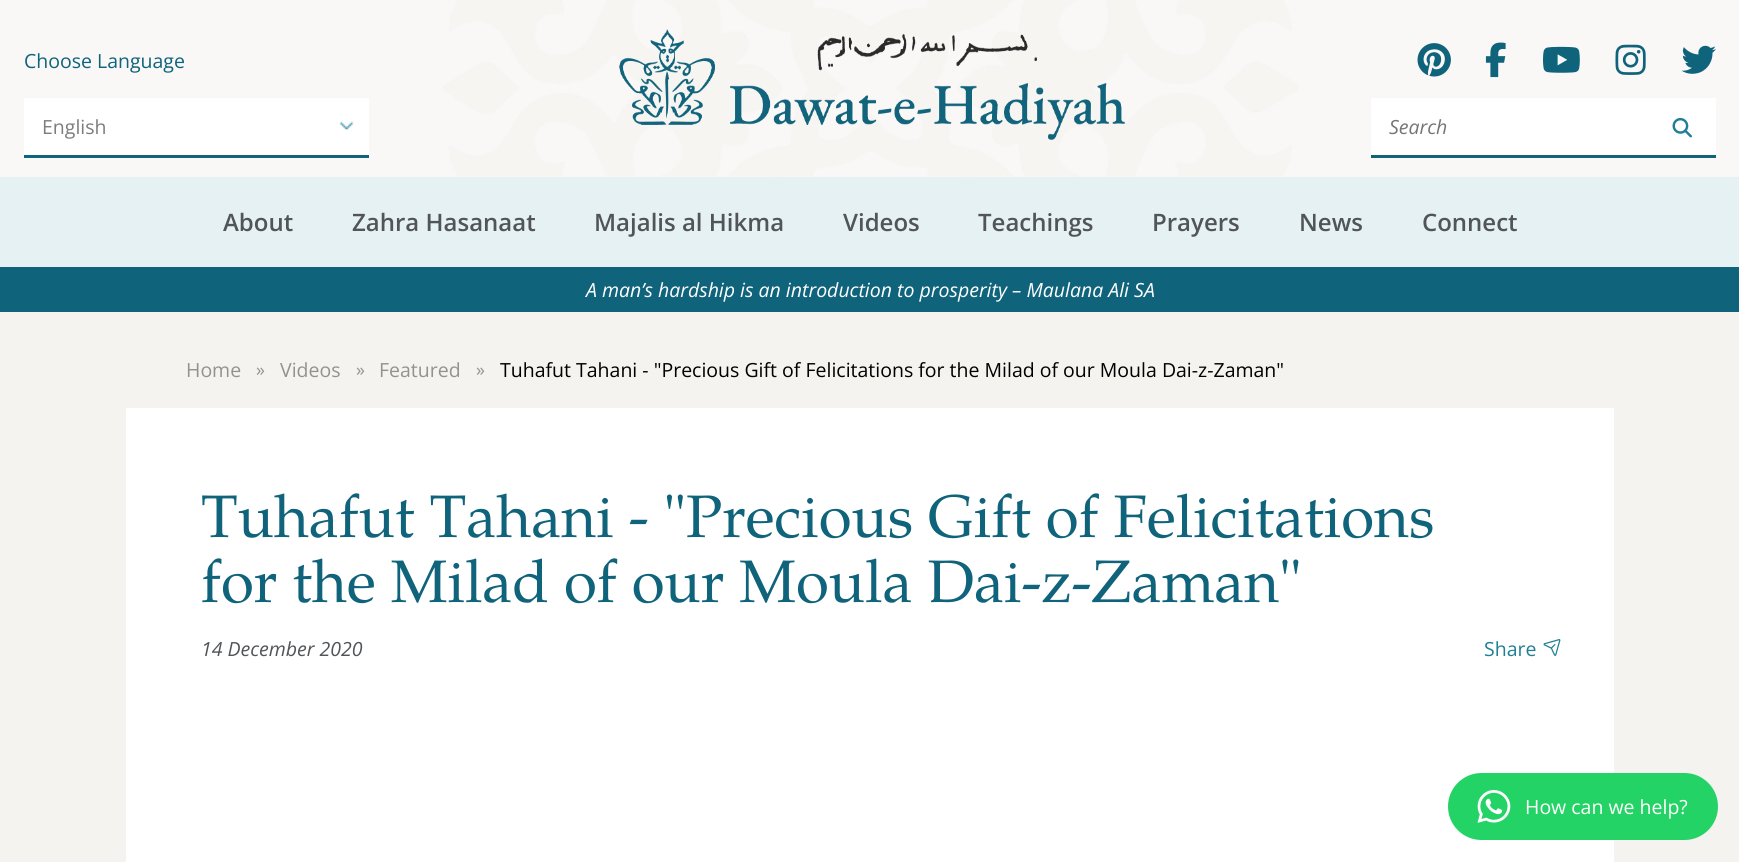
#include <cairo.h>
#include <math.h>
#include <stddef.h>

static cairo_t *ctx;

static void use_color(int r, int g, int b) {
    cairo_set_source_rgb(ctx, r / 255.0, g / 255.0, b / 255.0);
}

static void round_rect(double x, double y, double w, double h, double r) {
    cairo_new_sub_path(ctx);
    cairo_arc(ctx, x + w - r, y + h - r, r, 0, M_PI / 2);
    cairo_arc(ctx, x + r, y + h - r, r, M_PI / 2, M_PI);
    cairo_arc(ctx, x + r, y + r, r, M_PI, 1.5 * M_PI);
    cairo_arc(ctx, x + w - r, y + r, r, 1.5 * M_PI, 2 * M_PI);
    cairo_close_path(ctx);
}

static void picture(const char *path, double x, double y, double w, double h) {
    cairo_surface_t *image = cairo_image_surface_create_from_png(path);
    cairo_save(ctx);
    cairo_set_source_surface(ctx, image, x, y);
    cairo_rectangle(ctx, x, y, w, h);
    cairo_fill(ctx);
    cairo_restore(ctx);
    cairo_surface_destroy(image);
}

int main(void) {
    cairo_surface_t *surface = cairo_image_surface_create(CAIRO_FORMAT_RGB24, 1739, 862);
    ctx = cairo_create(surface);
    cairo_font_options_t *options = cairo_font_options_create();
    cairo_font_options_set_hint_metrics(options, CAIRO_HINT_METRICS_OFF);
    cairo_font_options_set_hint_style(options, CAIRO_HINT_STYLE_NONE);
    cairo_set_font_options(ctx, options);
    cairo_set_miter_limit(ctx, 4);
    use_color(244, 243, 240);
    cairo_paint(ctx);
    use_color(249, 248, 247);
    cairo_rectangle(ctx, 0, 0, 1739, 177);
    cairo_fill(ctx);
    picture("img1.png", 442, 0, 857, 177);
    cairo_select_font_face(ctx, "Open Sans", CAIRO_FONT_SLANT_NORMAL, CAIRO_FONT_WEIGHT_NORMAL);
    cairo_set_font_size(ctx, 19.5);
    use_color(15, 99, 123);
    cairo_move_to(ctx, 24, 68);
    cairo_show_text(ctx, "Choose Language");
    use_color(255, 255, 255);
    cairo_rectangle(ctx, 24, 98, 345, 57);
    cairo_fill(ctx);
    picture("img2.png", 339, 121, 15, 10);
    use_color(15, 99, 123);
    cairo_rectangle(ctx, 24, 155, 345, 3);
    cairo_fill(ctx);
    use_color(125, 125, 125);
    cairo_move_to(ctx, 42, 134);
    cairo_show_text(ctx, "English");
    picture("img3.png", 619, 29, 506, 111);
    picture("img4.png", 1417, 43, 34, 34);
    picture("img5.png", 1485, 42, 21, 36);
    picture("img6.png", 1543, 46, 37, 27);
    picture("img7.png", 1615, 44, 31, 31);
    picture("img8.png", 1681, 45, 35, 29);
    use_color(255, 255, 255);
    cairo_rectangle(ctx, 1371, 98, 345, 57);
    cairo_fill(ctx);
    use_color(15, 99, 123);
    cairo_rectangle(ctx, 1371, 155, 345, 3);
    cairo_fill(ctx);
    cairo_select_font_face(ctx, "Open Sans", CAIRO_FONT_SLANT_ITALIC, CAIRO_FONT_WEIGHT_NORMAL);
    use_color(117, 117, 117);
    cairo_move_to(ctx, 1389, 134);
    cairo_show_text(ctx, "Search");
    picture("img9.png", 1672, 117, 20, 21);
    use_color(230, 241, 244);
    cairo_rectangle(ctx, 0, 177, 1739, 90);
    cairo_fill(ctx);
    cairo_select_font_face(ctx, "Open Sans SemiBold", CAIRO_FONT_SLANT_NORMAL, CAIRO_FONT_WEIGHT_NORMAL);
    cairo_set_font_size(ctx, 24);
    use_color(81, 85, 88);
    cairo_move_to(ctx, 223, 231);
    cairo_show_text(ctx, "About");
    cairo_move_to(ctx, 352, 231);
    cairo_show_text(ctx, "Zahra Hasanaat");
    cairo_move_to(ctx, 594, 231);
    cairo_show_text(ctx, "Majalis al Hikma");
    cairo_move_to(ctx, 843, 231);
    cairo_show_text(ctx, "Videos");
    cairo_move_to(ctx, 978, 231);
    cairo_show_text(ctx, "Teachings");
    cairo_move_to(ctx, 1152, 231);
    cairo_show_text(ctx, "Prayers");
    cairo_move_to(ctx, 1299, 231);
    cairo_show_text(ctx, "News");
    cairo_move_to(ctx, 1422, 231);
    cairo_show_text(ctx, "Connect");
    use_color(15, 99, 123);
    cairo_rectangle(ctx, 0, 267, 1739, 45);
    cairo_fill(ctx);
    cairo_select_font_face(ctx, "Open Sans", CAIRO_FONT_SLANT_ITALIC, CAIRO_FONT_WEIGHT_NORMAL);
    cairo_set_font_size(ctx, 19.5);
    use_color(255, 255, 255);
    cairo_move_to(ctx, 586, 297);
    cairo_show_text(ctx, "A man’s hardship is an introduction to prosperity – Maulana Ali SA");
    cairo_select_font_face(ctx, "Open Sans", CAIRO_FONT_SLANT_NORMAL, CAIRO_FONT_WEIGHT_NORMAL);
    use_color(146, 146, 144);
    cairo_move_to(ctx, 186, 377);
    cairo_show_text(ctx, "Home");
    cairo_set_font_size(ctx, 18);
    cairo_move_to(ctx, 256, 376);
    cairo_show_text(ctx, "»");
    cairo_set_font_size(ctx, 19.5);
    cairo_move_to(ctx, 280, 377);
    cairo_show_text(ctx, "Videos");
    cairo_set_font_size(ctx, 18);
    cairo_move_to(ctx, 356, 376);
    cairo_show_text(ctx, "»");
    cairo_set_font_size(ctx, 19.5);
    cairo_move_to(ctx, 379, 377);
    cairo_show_text(ctx, "Featured");
    cairo_set_font_size(ctx, 18);
    cairo_move_to(ctx, 476, 376);
    cairo_show_text(ctx, "»");
    cairo_set_font_size(ctx, 19.5);
    use_color(0, 0, 0);
    cairo_move_to(ctx, 500, 377);
    cairo_show_text(ctx, "Tuhafut Tahani - \"Precious Gift of Felicitations for the Milad of our Moula Dai-z-Zaman\"");
    use_color(255, 255, 255);
    cairo_rectangle(ctx, 126, 408, 1488, 454);
    cairo_fill(ctx);
    cairo_select_font_face(ctx, "Palatino", CAIRO_FONT_SLANT_NORMAL, CAIRO_FONT_WEIGHT_NORMAL);
    cairo_set_font_size(ctx, 60);
    use_color(15, 99, 123);
    cairo_move_to(ctx, 201, 537);
    cairo_show_text(ctx, "Tuhafut Tahani - \"Precious Gift of Felicitations");
    cairo_move_to(ctx, 201, 602);
    cairo_show_text(ctx, "for the Milad of our Moula Dai-z-Zaman\"");
    cairo_select_font_face(ctx, "Open Sans", CAIRO_FONT_SLANT_ITALIC, CAIRO_FONT_WEIGHT_NORMAL);
    cairo_set_font_size(ctx, 19.5);
    use_color(81, 85, 88);
    cairo_move_to(ctx, 201, 656);
    cairo_show_text(ctx, "14 December 2020");
    cairo_select_font_face(ctx, "Open Sans", CAIRO_FONT_SLANT_NORMAL, CAIRO_FONT_WEIGHT_NORMAL);
    use_color(32, 126, 151);
    cairo_move_to(ctx, 1484, 656);
    cairo_show_text(ctx, "Share");
    picture("img10.png", 1543, 639, 18, 17);
    use_color(36, 211, 101);
    round_rect(1448, 773, 270, 67, 33.5);
    cairo_fill(ctx);
    picture("img11.png", 1477, 790, 34, 33);
    use_color(255, 255, 255);
    cairo_move_to(ctx, 1525, 814);
    cairo_show_text(ctx, "How can we help?");
    cairo_surface_write_to_png(surface, "result.png");
    cairo_font_options_destroy(options);
    cairo_destroy(ctx);
    cairo_surface_destroy(surface);
    return 0;
}
